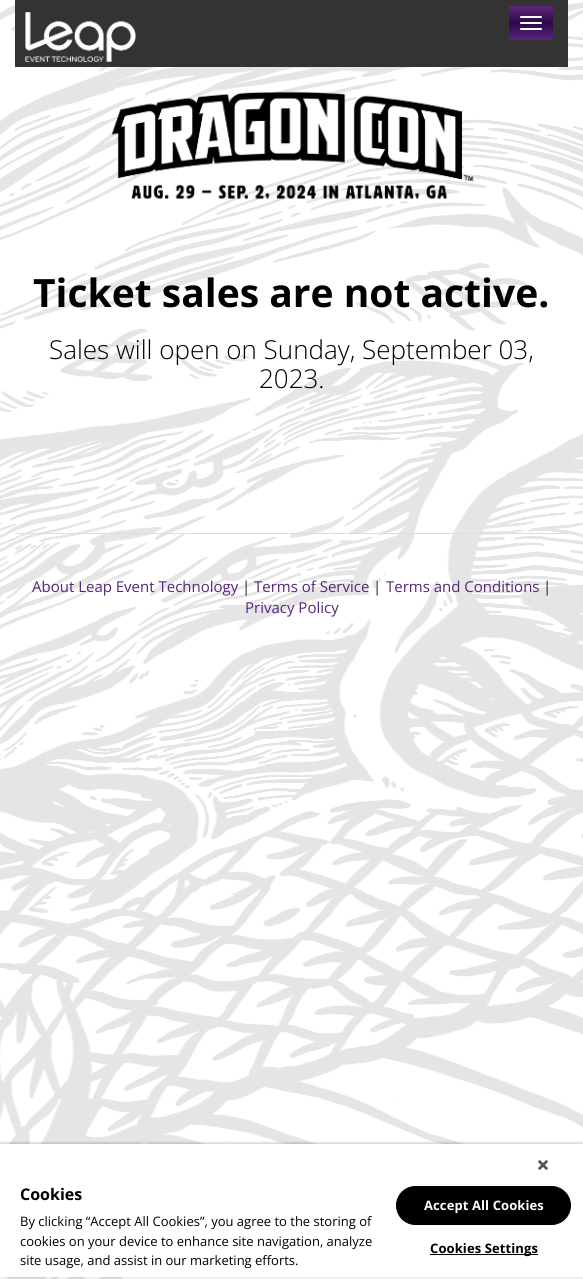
#include <cairo.h>
#include <math.h>
#include <stddef.h>

typedef struct { const char *family; double size; int italic, bold; unsigned color; } style_t;
static cairo_t *ctx;

static void ink(unsigned color) {
    cairo_set_source_rgb(ctx, (color >> 16) / 255.0, (color >> 8 & 255) / 255.0, (color & 255) / 255.0);
}

static void write(double x, double y, const char *s, const style_t *st) {
    cairo_select_font_face(ctx, st->family, st->italic ? CAIRO_FONT_SLANT_ITALIC : CAIRO_FONT_SLANT_NORMAL,
        st->bold ? CAIRO_FONT_WEIGHT_BOLD : CAIRO_FONT_WEIGHT_NORMAL);
    cairo_set_font_size(ctx, st->size);
    ink(st->color);
    cairo_move_to(ctx, x, y);
    cairo_show_text(ctx, s);
}

static void write_spaced(double x, double y, const char *s, double letter, double word) {
    cairo_move_to(ctx, x, y);
    while (*s) {
        char ch[5] = {0};
        int n = 0;
        do ch[n++] = *s++; while ((*s & 0xC0) == 0x80);
        cairo_show_text(ctx, ch);
        cairo_rel_move_to(ctx, letter + word * (*ch == ' '), 0);
    }
}

static void block(double x, double y, double w, double h, unsigned color) {
    ink(color);
    cairo_rectangle(ctx, x, y, w, h);
    cairo_fill(ctx);
}

static void round_path(double x, double y, double w, double h, double r) {
    cairo_new_sub_path(ctx);
    cairo_arc(ctx, x + w - r, y + h - r, r, 0, M_PI / 2);
    cairo_arc(ctx, x + r, y + h - r, r, M_PI / 2, M_PI);
    cairo_arc(ctx, x + r, y + r, r, M_PI, 1.5 * M_PI);
    cairo_arc(ctx, x + w - r, y + r, r, 1.5 * M_PI, 2 * M_PI);
    cairo_close_path(ctx);
}

static void blur_box(double x, double y, double w, double h, double r, double blur, double alpha) {
    cairo_push_group_with_content(ctx, CAIRO_CONTENT_ALPHA);
    cairo_set_operator(ctx, CAIRO_OPERATOR_SOURCE);
    for (int i = 15; i >= -15 && fmin(w, h) + blur * i / 3 > 0; i -= 2) {
        double e = blur * i / 6;
        cairo_set_source_rgba(ctx, 0, 0, 0, alpha * erfc((i - 1) / 8.5) / 2);
        round_path(x - e, y - e, w + 2 * e, h + 2 * e, fmax(0, fmin(r + e + blur * .6, fmin(w, h) / 2 + e)));
        cairo_fill(ctx);
    }
    cairo_pattern_t *soft = cairo_pop_group(ctx);
    cairo_mask(ctx, soft);
    cairo_pattern_destroy(soft);
}

static void paste(const char *path, double x, double y, double w, double h) {
    cairo_surface_t *image = cairo_image_surface_create_from_png(path);
    cairo_save(ctx);
    cairo_set_source_surface(ctx, image, x, y);
    cairo_rectangle(ctx, x, y, w, h);
    cairo_fill(ctx);
    cairo_restore(ctx);
    cairo_surface_destroy(image);
}

static const style_t s1 = {"Open Sans", 39, 0, 1, 0x000000};
static const style_t s2 = {"Open Sans Light", 26, 0, 0, 0x000000};
static const style_t s3 = {"Open Sans", 15, 0, 0, 0x592579};
static const style_t s4 = {"Open Sans", 15, 0, 0, 0x222222};
static const style_t s5 = {"Open Sans", 16, 0, 1, 0x000000};
static const style_t s6 = {"Open Sans", 13, 0, 0, 0x000000};

int main(void) {
    cairo_surface_t *surface = cairo_image_surface_create(CAIRO_FORMAT_RGB24, 583, 1279);
    ctx = cairo_create(surface);
    cairo_font_options_t *options = cairo_font_options_create();
    cairo_font_options_set_hint_metrics(options, CAIRO_HINT_METRICS_OFF);
    cairo_font_options_set_hint_style(options, CAIRO_HINT_STYLE_NONE);
    cairo_set_font_options(ctx, options);
    cairo_set_miter_limit(ctx, 4);
    cairo_pattern_t *gradient;
    ink(0xffffff);
    cairo_paint(ctx);
    paste("pic1.png", 0, 2, 583, 1277);
    block(15, 0, 553, 67, 0x333333);
    paste("pic2.png", 25, 12, 111, 50);
    gradient = cairo_pattern_create_linear(531, -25, 531, 7);
    cairo_pattern_add_color_stop_rgba(gradient, 0, 0.349, 0.145, 0.475, 1);
    cairo_pattern_add_color_stop_rgba(gradient, 0.5, 0.184, 0.024, 0.286, 1);
    cairo_pattern_add_color_stop_rgba(gradient, 1, 0.349, 0.145, 0.475, 1);
    cairo_set_source(ctx, gradient);
    cairo_pattern_destroy(gradient);
    cairo_rectangle(ctx, 509, 6, 44, 1);
    cairo_fill(ctx);
    gradient = cairo_pattern_create_linear(531, 7, 531, 39);
    cairo_pattern_add_color_stop_rgba(gradient, 0, 0.349, 0.145, 0.475, 1);
    cairo_pattern_add_color_stop_rgba(gradient, 0.5, 0.184, 0.024, 0.286, 1);
    cairo_pattern_add_color_stop_rgba(gradient, 1, 0.349, 0.145, 0.475, 1);
    cairo_set_source(ctx, gradient);
    cairo_pattern_destroy(gradient);
    cairo_rectangle(ctx, 509, 7, 44, 32);
    cairo_fill(ctx);
    gradient = cairo_pattern_create_linear(531, 39, 531, 71);
    cairo_pattern_add_color_stop_rgba(gradient, 0, 0.349, 0.145, 0.475, 1);
    cairo_pattern_add_color_stop_rgba(gradient, 0.5, 0.184, 0.024, 0.286, 1);
    cairo_pattern_add_color_stop_rgba(gradient, 1, 0.349, 0.145, 0.475, 1);
    cairo_set_source(ctx, gradient);
    cairo_pattern_destroy(gradient);
    cairo_rectangle(ctx, 509, 39, 44, 1);
    cairo_fill(ctx);
    ink(0xffffff);
    round_path(520, 16, 22, 2, 1);
    cairo_fill(ctx);
    round_path(520, 22, 22, 2, 1);
    cairo_fill(ctx);
    round_path(520, 28, 22, 2, 1);
    cairo_fill(ctx);
    paste("pic3.png", 111, 91, 363, 109);
    write(33, 307, "Ticket sales are not active.", &s1);
    write(49, 359, "Sales will open on Sunday, September 03,", &s2);
    write(259, 388, "2023.", &s2);
    block(15, 533, 553, 1, 0xdddddd);
    write(32, 592, "About Leap Event Technology", &s3);
    write(242, 592, "|", &s4);
    write(254, 592, "Terms of Service", &s3);
    write(373, 592, "|", &s4);
    write(386, 592, "Terms and Conditions", &s3);
    write(543, 592, "|", &s4);
    write(245, 613, "Privacy Policy", &s3);
    cairo_save(ctx);
    cairo_rectangle(ctx, 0, 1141, 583, 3);
    cairo_clip(ctx);
    ink(0x000000);
    blur_box(0, 1144, 583, 135, 0, 2, 0.35);
    cairo_restore(ctx);
    cairo_save(ctx);
    cairo_rectangle(ctx, 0, 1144, 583, 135);
    cairo_clip(ctx);
    ink(0x000000);
    blur_box(0, 1144, 583, 133, 0, 2, 0.2);
    cairo_restore(ctx);
    block(0, 1144, 583, 133, 0xffffff);
    paste("pic4.png", 538, 1160, 10, 10);
    write(20, 1200, "Cookies", &s5);
    write(20, 1226, "By clicking “Accept All Cookies”, you agree to the storing of", &s6);
    write(20, 1246, "cookies on your device to enhance site navigation, analyze", &s6);
    write(20, 1265, "site usage, and assist in our marketing efforts.", &s6);
    round_path(396.5, 1186.5, 174, 38, 19);
    cairo_fill_preserve(ctx);
    cairo_set_line_width(ctx, 1);
    cairo_stroke(ctx);
    cairo_select_font_face(ctx, "Open Sans", CAIRO_FONT_SLANT_NORMAL, CAIRO_FONT_WEIGHT_BOLD);
    ink(0xffffff);
    write_spaced(424, 1210, "Accept All Cookies", 0.1, 0);
    block(430, 1254, 108, 1, 0x000000);
    write_spaced(430, 1253, "Cookies Settings", 0.1, 0);
    cairo_surface_write_to_png(surface, "screenshot.png");
    cairo_font_options_destroy(options);
    cairo_destroy(ctx);
    cairo_surface_destroy(surface);
    return 0;
}
